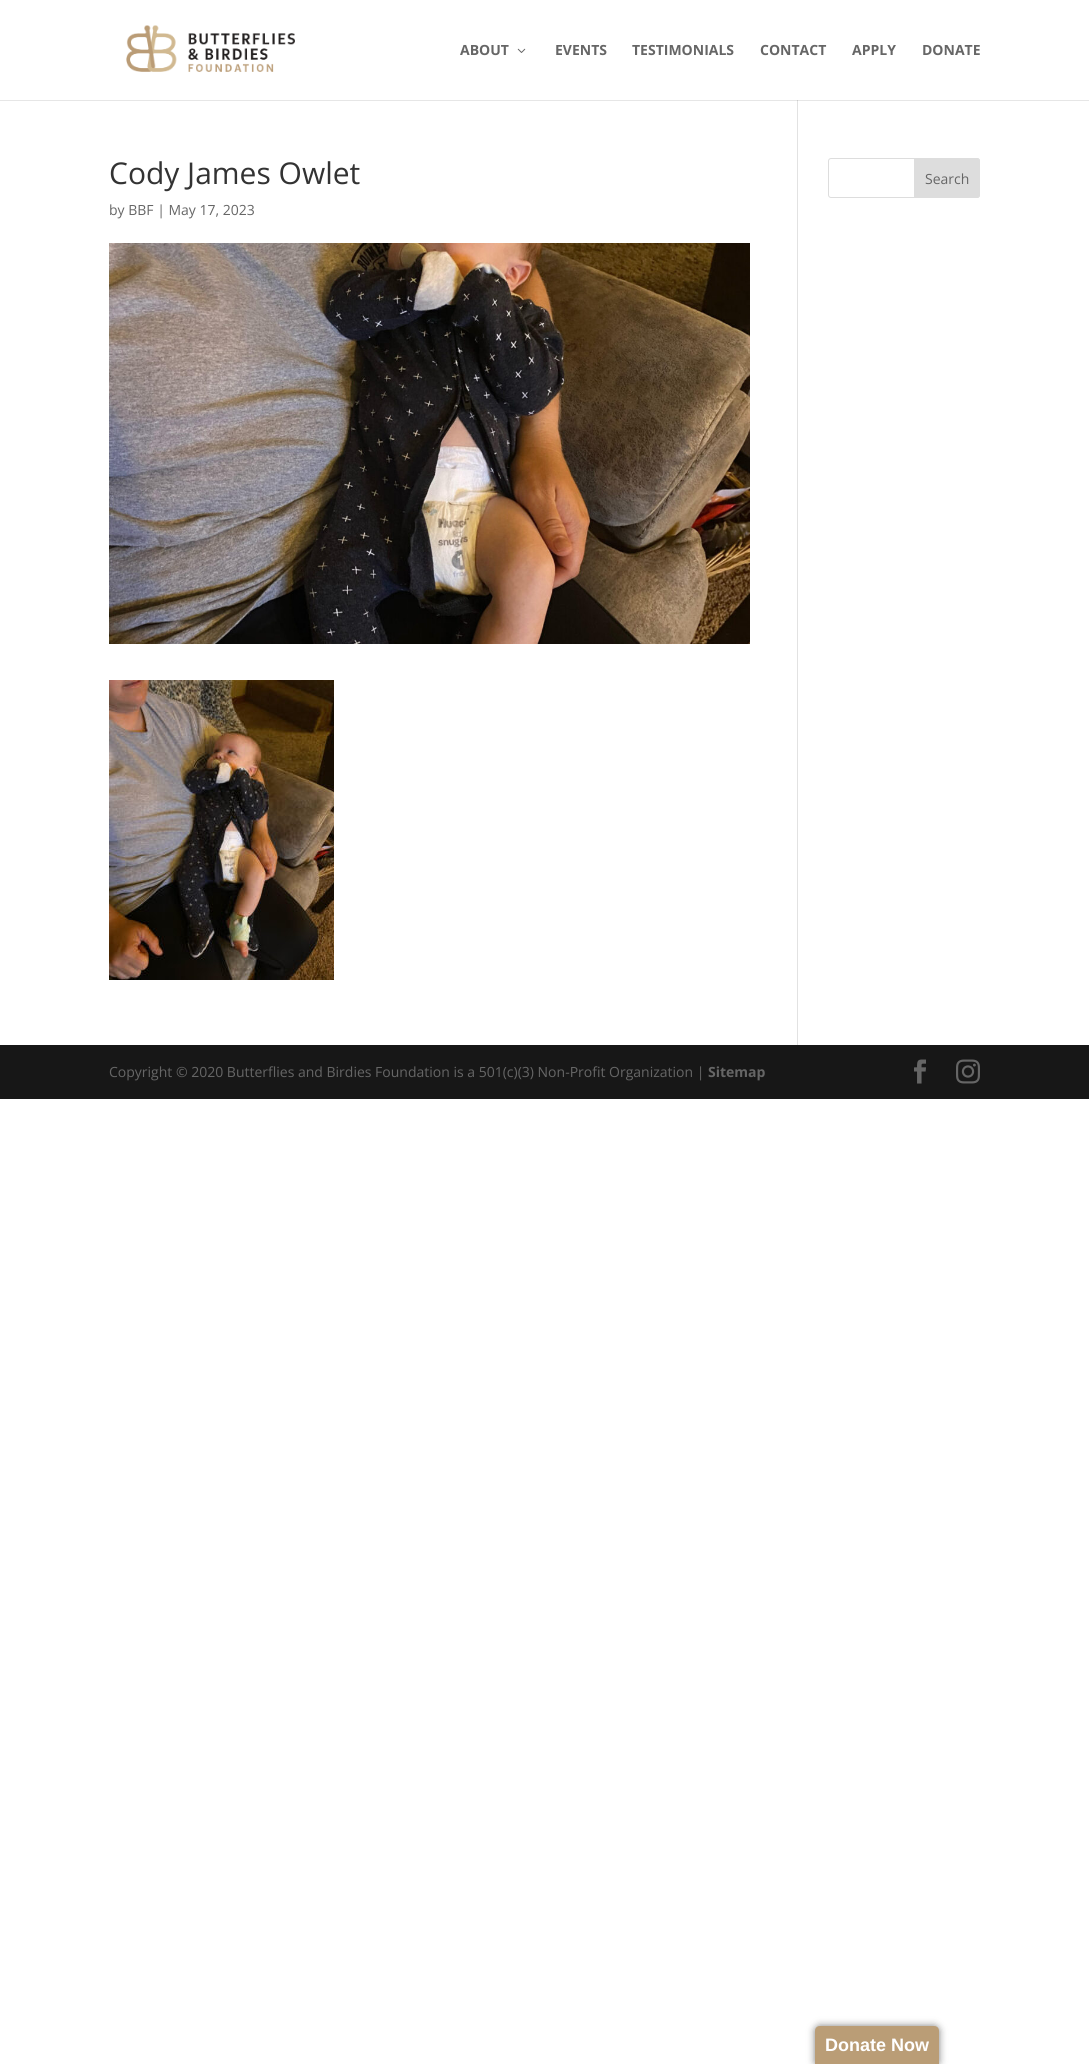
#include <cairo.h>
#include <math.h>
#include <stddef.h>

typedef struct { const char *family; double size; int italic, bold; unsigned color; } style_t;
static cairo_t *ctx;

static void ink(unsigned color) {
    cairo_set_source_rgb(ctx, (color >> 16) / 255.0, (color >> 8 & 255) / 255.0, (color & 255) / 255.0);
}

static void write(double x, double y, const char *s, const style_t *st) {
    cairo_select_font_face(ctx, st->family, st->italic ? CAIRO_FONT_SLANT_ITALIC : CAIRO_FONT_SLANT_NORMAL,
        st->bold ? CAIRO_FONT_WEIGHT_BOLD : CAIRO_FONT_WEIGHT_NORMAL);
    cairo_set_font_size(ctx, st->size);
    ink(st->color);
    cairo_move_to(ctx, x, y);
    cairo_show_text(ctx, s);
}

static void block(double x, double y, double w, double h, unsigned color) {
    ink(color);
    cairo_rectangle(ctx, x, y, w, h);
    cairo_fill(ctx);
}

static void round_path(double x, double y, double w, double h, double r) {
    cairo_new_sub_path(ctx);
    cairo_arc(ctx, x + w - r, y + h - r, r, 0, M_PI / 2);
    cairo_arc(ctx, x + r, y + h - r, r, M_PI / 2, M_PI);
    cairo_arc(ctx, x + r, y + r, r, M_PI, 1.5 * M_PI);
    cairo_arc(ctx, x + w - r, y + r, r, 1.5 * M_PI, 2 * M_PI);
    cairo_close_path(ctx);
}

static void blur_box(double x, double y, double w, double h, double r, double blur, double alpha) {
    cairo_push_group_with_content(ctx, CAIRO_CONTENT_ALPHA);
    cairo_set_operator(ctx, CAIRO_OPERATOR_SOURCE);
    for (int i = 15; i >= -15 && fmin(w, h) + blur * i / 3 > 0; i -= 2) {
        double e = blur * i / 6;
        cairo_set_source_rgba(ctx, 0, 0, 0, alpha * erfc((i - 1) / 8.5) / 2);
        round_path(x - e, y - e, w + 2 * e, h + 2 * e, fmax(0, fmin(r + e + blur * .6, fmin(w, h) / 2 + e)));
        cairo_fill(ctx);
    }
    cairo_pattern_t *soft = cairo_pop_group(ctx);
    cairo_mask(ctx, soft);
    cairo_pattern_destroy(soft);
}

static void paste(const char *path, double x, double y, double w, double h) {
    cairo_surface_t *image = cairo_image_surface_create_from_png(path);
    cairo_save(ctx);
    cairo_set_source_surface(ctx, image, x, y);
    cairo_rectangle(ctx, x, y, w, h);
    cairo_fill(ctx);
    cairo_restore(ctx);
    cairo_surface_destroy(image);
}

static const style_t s1 = {"Open Sans", 14, 0, 1, 0x666666};
static const style_t s2 = {"Open Sans", 30, 0, 0, 0x333333};
static const style_t s3 = {"Open Sans", 14, 0, 0, 0x666666};
static const style_t s4 = {"Liberation Sans", 18, 0, 1, 0xffffff};

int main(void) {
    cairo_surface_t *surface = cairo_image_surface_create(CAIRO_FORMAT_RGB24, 1089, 2064);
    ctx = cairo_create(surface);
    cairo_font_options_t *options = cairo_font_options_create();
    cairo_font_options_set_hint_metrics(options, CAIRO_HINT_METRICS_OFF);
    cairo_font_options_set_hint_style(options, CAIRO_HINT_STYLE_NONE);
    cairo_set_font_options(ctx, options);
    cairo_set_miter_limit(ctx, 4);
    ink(0xffffff);
    cairo_paint(ctx);
    block(0, 100, 1089, 1, 0xe6e6e6);
    paste("pic1.png", 126, 25, 169, 47);
    write(460, 55, "ABOUT", &s1);
    paste("pic2.png", 517, 48, 9, 5);
    write(555, 55, "EVENTS", &s1);
    write(632, 55, "TESTIMONIALS", &s1);
    write(760, 55, "CONTACT", &s1);
    write(852, 55, "APPLY", &s1);
    write(922, 55, "DONATE", &s1);
    block(797, 100, 1, 945, 0xe2e2e2);
    block(797, 100, 1, 1, 0xcbcbcb);
    write(109, 184, "Cody James Owlet", &s2);
    write(109, 215, "by BBF | May 17, 2023", &s3);
    paste("pic3.png", 109, 243, 641, 401);
    paste("pic4.png", 109, 680, 225, 300);
    round_path(828.5, 158.5, 151, 39, 2.5);
    ink(0xdddddd);
    cairo_set_line_width(ctx, 1);
    cairo_stroke(ctx);
    cairo_new_path(ctx);
    cairo_move_to(ctx, 914.5, 158.5);
    cairo_line_to(ctx, 977, 158.5);
    cairo_curve_to(ctx, 978.5, 158.5, 979.5, 159.5, 979.5, 161);
    cairo_line_to(ctx, 979.5, 195);
    cairo_curve_to(ctx, 979.5, 196.5, 978.5, 197.5, 977, 197.5);
    cairo_line_to(ctx, 914.5, 197.5);
    cairo_close_path(ctx);
    cairo_fill_preserve(ctx);
    cairo_stroke(ctx);
    write(925, 184, "Search", &s3);
    block(0, 1045, 1089, 54, 0x171717);
    write(109, 1077, "Copyright © 2020 Butterflies and Birdies Foundation is a 501(c)(3) Non-Profit Organization |", &s3);
    write(708, 1077, "Sitemap", &s1);
    paste("pic5.png", 914, 1059, 12, 25);
    paste("pic6.png", 956, 1059, 24, 25);
    ink(0x000000);
    blur_box(815, 2026, 124, 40, 5, 4, 0.5);
    ink(0xba9d76);
    cairo_new_path(ctx);
    cairo_move_to(ctx, 820, 2026);
    cairo_line_to(ctx, 934, 2026);
    cairo_curve_to(ctx, 937, 2026, 939, 2028, 939, 2031);
    cairo_line_to(ctx, 939, 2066);
    cairo_line_to(ctx, 815, 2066);
    cairo_line_to(ctx, 815, 2031);
    cairo_curve_to(ctx, 815, 2028, 817, 2026, 820, 2026);
    cairo_close_path(ctx);
    cairo_fill(ctx);
    write(825, 2051, "Donate Now", &s4);
    cairo_surface_write_to_png(surface, "screenshot.png");
    cairo_font_options_destroy(options);
    cairo_destroy(ctx);
    cairo_surface_destroy(surface);
    return 0;
}
